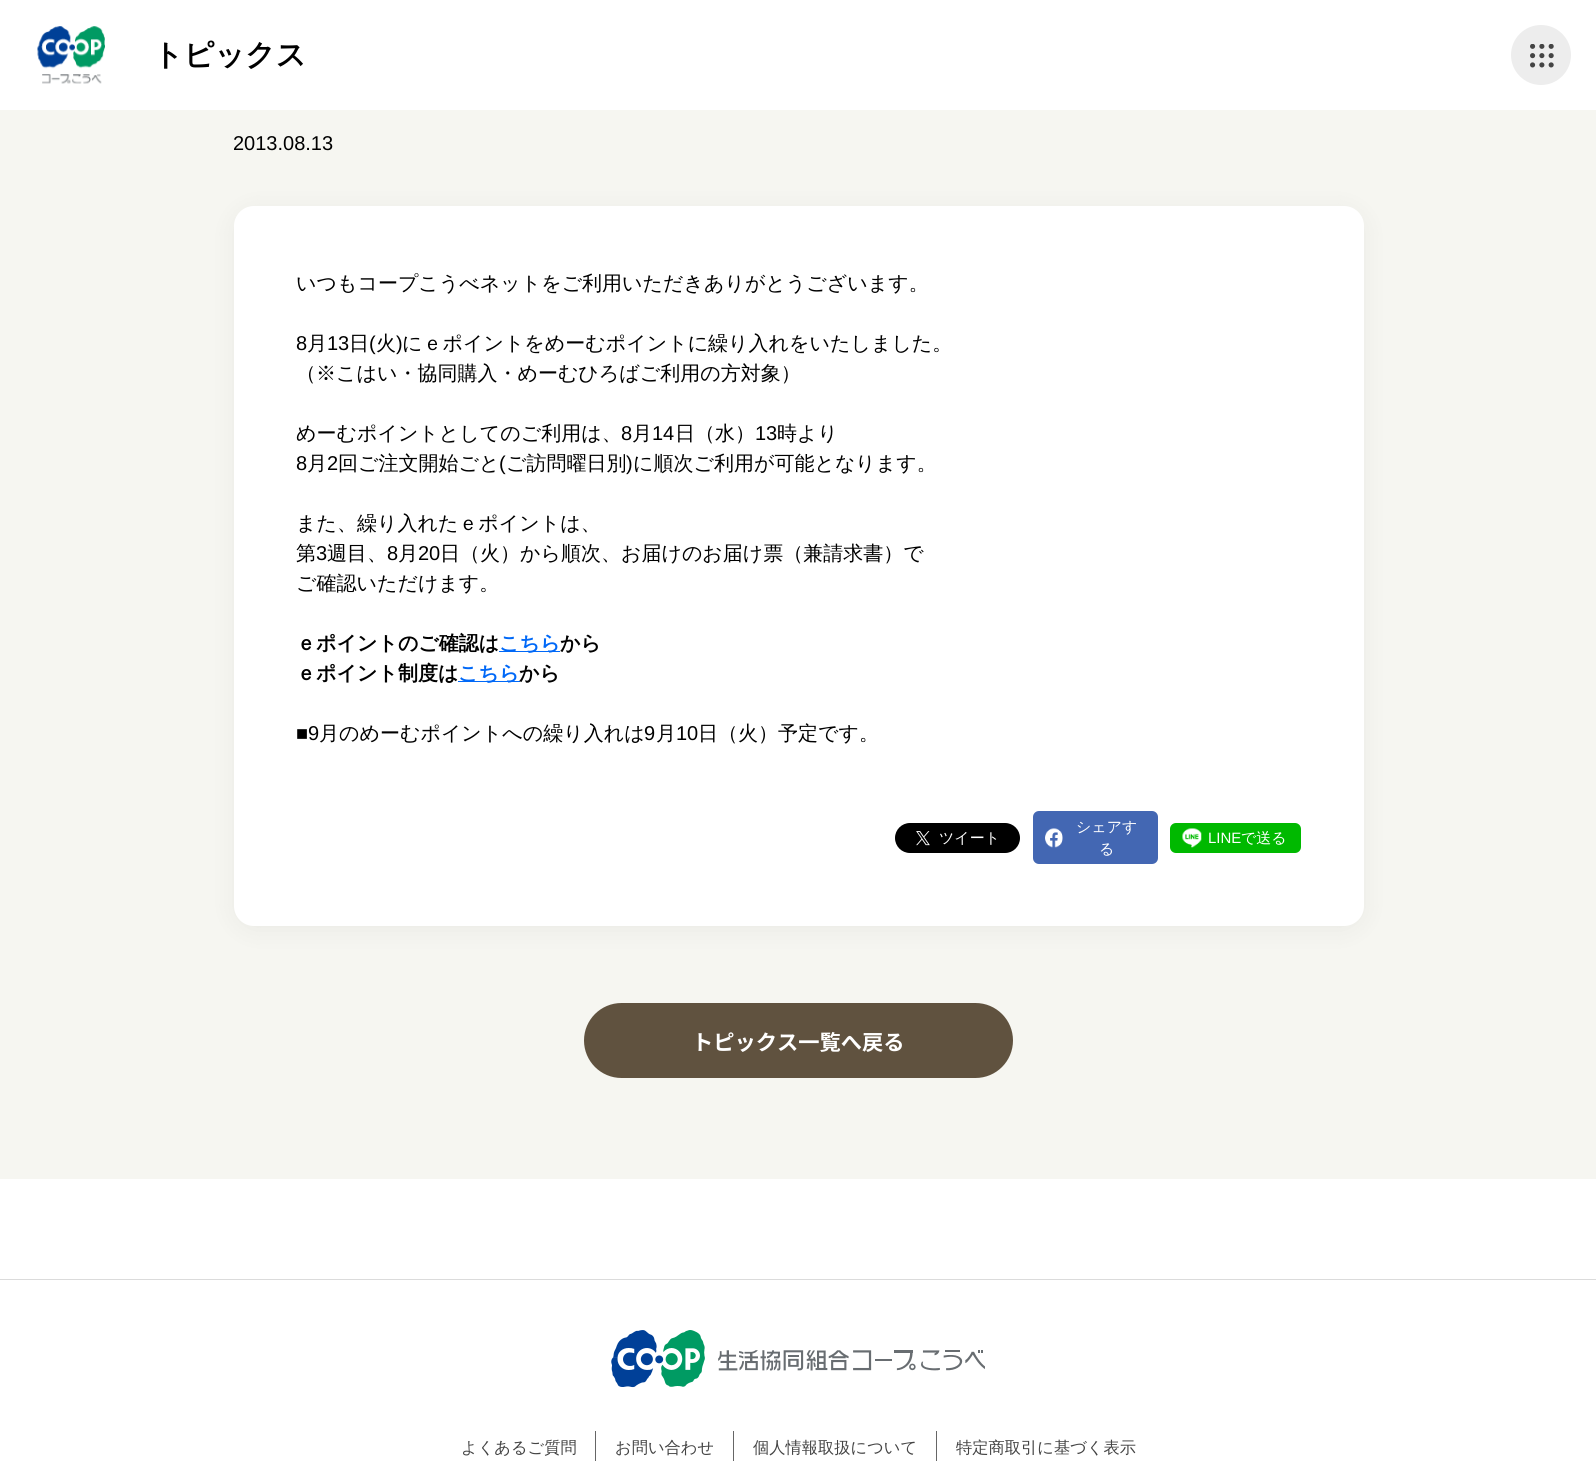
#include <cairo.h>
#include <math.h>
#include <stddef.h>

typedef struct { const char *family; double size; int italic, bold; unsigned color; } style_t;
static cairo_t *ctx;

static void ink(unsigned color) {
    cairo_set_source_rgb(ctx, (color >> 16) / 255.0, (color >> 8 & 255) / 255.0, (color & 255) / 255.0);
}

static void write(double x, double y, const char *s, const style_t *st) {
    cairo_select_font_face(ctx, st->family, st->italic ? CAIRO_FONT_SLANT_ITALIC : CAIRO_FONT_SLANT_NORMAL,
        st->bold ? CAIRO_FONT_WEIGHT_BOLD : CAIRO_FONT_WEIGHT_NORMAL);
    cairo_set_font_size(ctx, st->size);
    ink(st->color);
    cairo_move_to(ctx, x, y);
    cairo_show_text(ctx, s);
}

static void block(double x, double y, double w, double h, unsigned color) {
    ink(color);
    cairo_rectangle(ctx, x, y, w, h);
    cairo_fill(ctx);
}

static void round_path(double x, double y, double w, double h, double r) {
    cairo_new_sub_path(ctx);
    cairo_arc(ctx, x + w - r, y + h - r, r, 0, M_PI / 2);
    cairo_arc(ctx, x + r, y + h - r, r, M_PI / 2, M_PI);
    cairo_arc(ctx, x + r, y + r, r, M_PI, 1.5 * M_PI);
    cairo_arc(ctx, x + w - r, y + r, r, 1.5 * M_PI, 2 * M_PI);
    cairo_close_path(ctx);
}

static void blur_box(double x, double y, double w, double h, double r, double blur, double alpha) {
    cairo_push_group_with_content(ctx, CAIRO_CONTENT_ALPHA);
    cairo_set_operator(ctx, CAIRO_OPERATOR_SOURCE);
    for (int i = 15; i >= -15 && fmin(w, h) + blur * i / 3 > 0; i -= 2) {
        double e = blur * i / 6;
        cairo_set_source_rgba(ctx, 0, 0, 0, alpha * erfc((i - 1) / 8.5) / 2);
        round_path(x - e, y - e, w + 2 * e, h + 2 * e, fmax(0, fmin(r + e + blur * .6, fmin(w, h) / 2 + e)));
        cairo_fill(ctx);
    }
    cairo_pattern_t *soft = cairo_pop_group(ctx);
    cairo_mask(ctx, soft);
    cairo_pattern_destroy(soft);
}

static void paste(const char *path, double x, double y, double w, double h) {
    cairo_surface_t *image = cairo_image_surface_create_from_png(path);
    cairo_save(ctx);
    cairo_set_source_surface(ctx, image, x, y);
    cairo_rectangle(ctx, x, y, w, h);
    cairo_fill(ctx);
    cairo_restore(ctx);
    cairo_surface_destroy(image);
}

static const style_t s1 = {"WenQuanYi Zen Hei", 30, 0, 1, 0x000000};
static const style_t s2 = {"Liberation Sans", 20, 0, 0, 0x000000};
static const style_t s3 = {"WenQuanYi Zen Hei Medium", 20, 0, 0, 0x000000};
static const style_t s4 = {"WenQuanYi Zen Hei", 20, 0, 1, 0x000000};
static const style_t s5 = {"WenQuanYi Zen Hei", 20, 0, 1, 0x0068f7};
static const style_t s6 = {"WenQuanYi Zen Hei Medium", 15, 0, 0, 0xffffff};
static const style_t s7 = {"Liberation Sans", 15, 0, 0, 0xffffff};
static const style_t s8 = {"Noto Sans JP", 21.25, 0, 1, 0xffffff};
static const style_t s9 = {"WenQuanYi Zen Hei Medium", 16.25, 0, 0, 0x444444};

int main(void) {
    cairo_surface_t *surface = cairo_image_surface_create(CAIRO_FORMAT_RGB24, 1596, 1461);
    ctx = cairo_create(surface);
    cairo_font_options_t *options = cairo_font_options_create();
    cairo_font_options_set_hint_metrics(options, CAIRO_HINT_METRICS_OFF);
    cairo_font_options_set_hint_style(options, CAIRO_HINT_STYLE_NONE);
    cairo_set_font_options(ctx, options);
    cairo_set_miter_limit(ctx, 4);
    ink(0xffffff);
    cairo_paint(ctx);
    paste("pic1.png", 37, 26, 68, 58);
    write(153, 65, "トピックス", &s1);
    ink(0xededed);
    cairo_new_path(ctx);
    cairo_arc(ctx, 1541, 55, 30, 0, 2 * M_PI);
    cairo_fill(ctx);
    paste("pic2.png", 1530, 44, 24, 24);
    block(0, 110, 1596, 1069, 0xf6f6f1);
    write(233, 150, "2013.08.13", &s2);
    ink(0x000000);
    blur_box(234, 210, 1130, 720, 20, 12.5, 0.05);
    ink(0xffffff);
    round_path(234, 206, 1130, 720, 20);
    cairo_fill(ctx);
    write(296, 290, "いつもコープこうべネットをご利用いただきありがとうございます。", &s3);
    write(296, 350, "8", &s2);
    write(307, 350, "月", &s3);
    write(327, 350, "13", &s2);
    write(349, 350, "日", &s3);
    write(369, 350, "(", &s2);
    write(376, 350, "火", &s3);
    write(396, 350, ")", &s2);
    write(402, 350, "にｅポイントをめーむポイントに繰り入れをいたしました。", &s3);
    write(296, 380, "（※こはい・協同購入・めーむひろばご利用の方対象）", &s3);
    write(296, 440, "めーむポイントとしてのご利用は、", &s3);
    write(621, 440, "8", &s2);
    write(632, 440, "月", &s3);
    write(652, 440, "14", &s2);
    write(675, 440, "日（水）", &s3);
    write(755, 440, "13", &s2);
    write(777, 440, "時より", &s3);
    write(296, 470, "8", &s2);
    write(307, 470, "月", &s3);
    write(327, 470, "2", &s2);
    write(338, 470, "回ご注文開始ごと", &s3);
    write(499, 470, "(", &s2);
    write(506, 470, "ご訪問曜日別", &s3);
    write(626, 470, ")", &s2);
    write(633, 470, "に順次ご利用が可能となります。", &s3);
    write(296, 530, "また、繰り入れたｅポイントは、", &s3);
    write(296, 560, "第", &s3);
    write(316, 560, "3", &s2);
    write(327, 560, "週目、", &s3);
    write(387, 560, "8", &s2);
    write(398, 560, "月", &s3);
    write(418, 560, "20", &s2);
    write(440, 560, "日（火）から順次、お届けのお届け票（兼請求書）で", &s3);
    write(296, 590, "ご確認いただけます。", &s3);
    write(296, 650, "ｅポイントのご確認は", &s4);
    block(499, 651, 61, 1, 0x0068f7);
    write(499, 650, "こちら", &s5);
    write(560, 650, "から", &s4);
    write(296, 680, "ｅポイント制度は", &s4);
    block(458, 681, 62, 1, 0x0068f7);
    write(458, 680, "こちら", &s5);
    write(519, 680, "から", &s4);
    write(296, 740, "■9", &s2);
    write(319, 740, "月のめーむポイントへの繰り入れは", &s3);
    write(644, 740, "9", &s2);
    write(656, 740, "月", &s3);
    write(676, 740, "10", &s2);
    write(698, 740, "日（火）予定です。", &s3);
    round_path(895, 823, 125, 30, 15);
    cairo_fill(ctx);
    paste("pic3.png", 916, 831, 14, 15);
    write(939, 843, "ツイート", &s6);
    ink(0x4367b3);
    round_path(1033, 811, 125, 53, 6);
    cairo_fill(ctx);
    paste("pic4.png", 1045, 828, 18, 20);
    write(1076, 832, "シェアす", &s6);
    write(1099, 854, "る", &s6);
    ink(0x00b900);
    round_path(1170, 823, 131, 30, 6);
    cairo_fill(ctx);
    paste("pic5.png", 1182, 828, 20, 20);
    write(1208, 843, "LINE", &s7);
    write(1241, 843, "で送る", &s6);
    ink(0x60523f);
    round_path(585.5, 1004.5, 426, 72, 36);
    cairo_fill_preserve(ctx);
    cairo_set_line_width(ctx, 3);
    cairo_stroke(ctx);
    write(692, 1050, "トピックス一覧へ戻る", &s8);
    block(0, 1279, 1596, 1, 0xdbdbdb);
    paste("pic6.png", 611, 1330, 374, 58);
    block(595, 1431, 1, 30, 0x666666);
    write(461, 1453, "よくあるご質問", &s9);
    block(733, 1431, 1, 30, 0x666666);
    write(615, 1453, "お問い合わせ", &s9);
    block(936, 1431, 1, 30, 0x666666);
    write(753, 1453, "個人情報取扱について", &s9);
    write(956, 1453, "特定商取引に基づく表示", &s9);
    cairo_surface_write_to_png(surface, "screenshot.png");
    cairo_font_options_destroy(options);
    cairo_destroy(ctx);
    cairo_surface_destroy(surface);
    return 0;
}
